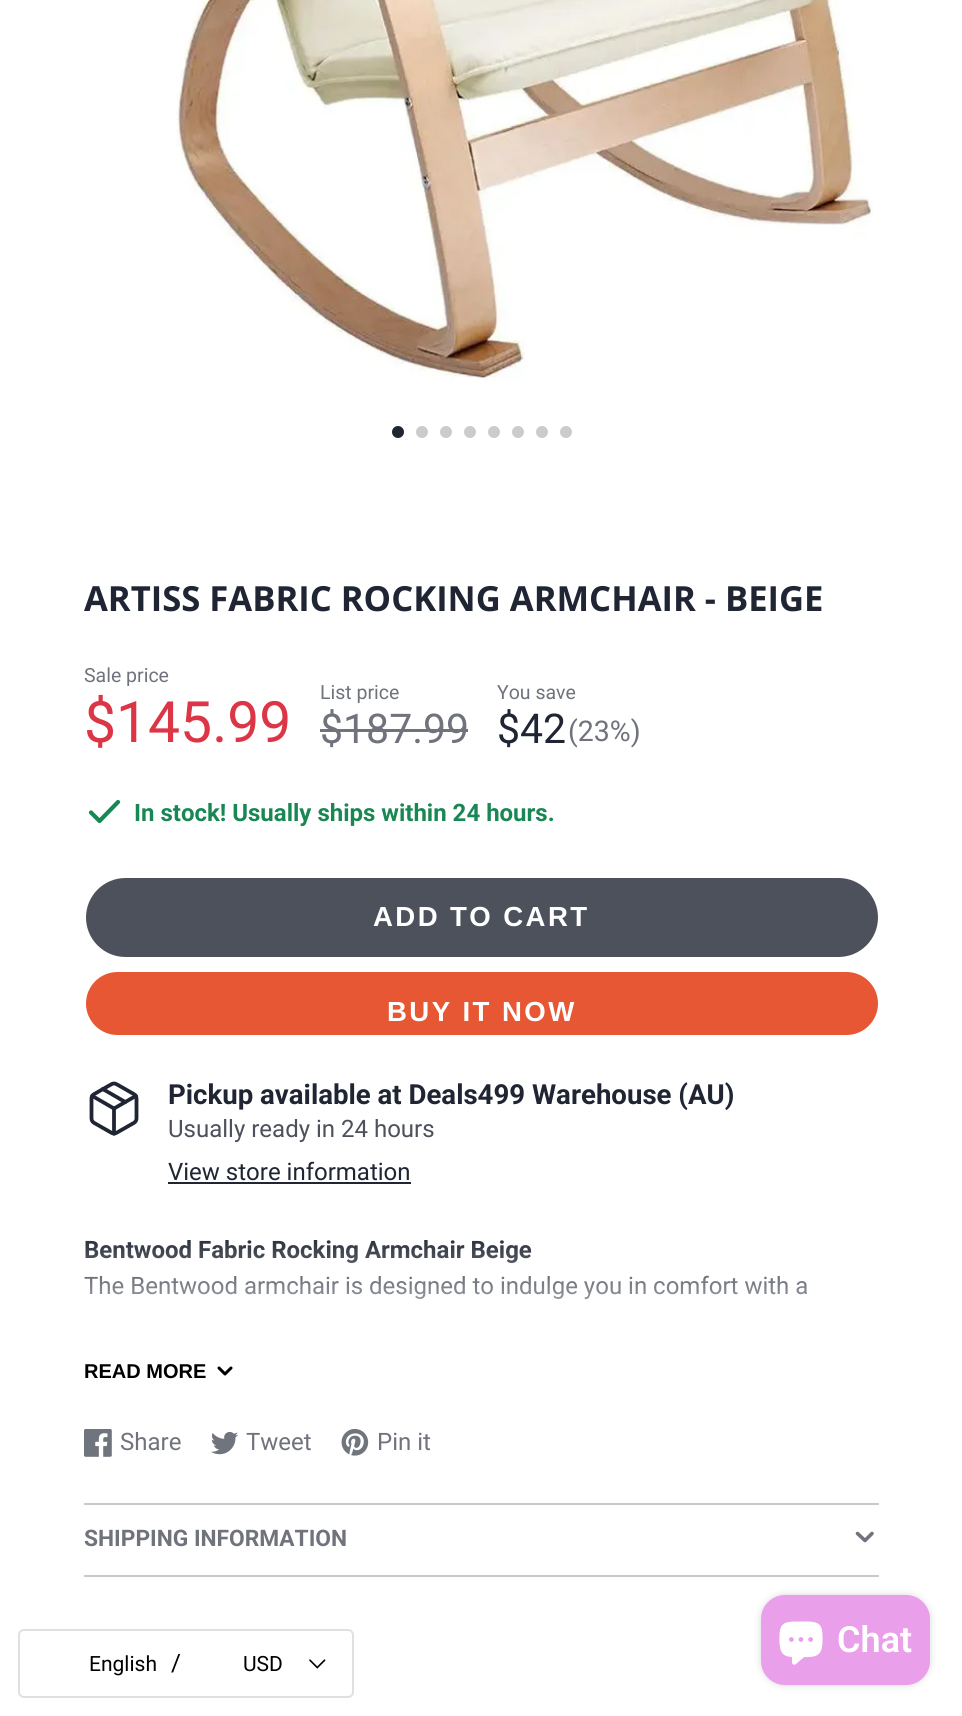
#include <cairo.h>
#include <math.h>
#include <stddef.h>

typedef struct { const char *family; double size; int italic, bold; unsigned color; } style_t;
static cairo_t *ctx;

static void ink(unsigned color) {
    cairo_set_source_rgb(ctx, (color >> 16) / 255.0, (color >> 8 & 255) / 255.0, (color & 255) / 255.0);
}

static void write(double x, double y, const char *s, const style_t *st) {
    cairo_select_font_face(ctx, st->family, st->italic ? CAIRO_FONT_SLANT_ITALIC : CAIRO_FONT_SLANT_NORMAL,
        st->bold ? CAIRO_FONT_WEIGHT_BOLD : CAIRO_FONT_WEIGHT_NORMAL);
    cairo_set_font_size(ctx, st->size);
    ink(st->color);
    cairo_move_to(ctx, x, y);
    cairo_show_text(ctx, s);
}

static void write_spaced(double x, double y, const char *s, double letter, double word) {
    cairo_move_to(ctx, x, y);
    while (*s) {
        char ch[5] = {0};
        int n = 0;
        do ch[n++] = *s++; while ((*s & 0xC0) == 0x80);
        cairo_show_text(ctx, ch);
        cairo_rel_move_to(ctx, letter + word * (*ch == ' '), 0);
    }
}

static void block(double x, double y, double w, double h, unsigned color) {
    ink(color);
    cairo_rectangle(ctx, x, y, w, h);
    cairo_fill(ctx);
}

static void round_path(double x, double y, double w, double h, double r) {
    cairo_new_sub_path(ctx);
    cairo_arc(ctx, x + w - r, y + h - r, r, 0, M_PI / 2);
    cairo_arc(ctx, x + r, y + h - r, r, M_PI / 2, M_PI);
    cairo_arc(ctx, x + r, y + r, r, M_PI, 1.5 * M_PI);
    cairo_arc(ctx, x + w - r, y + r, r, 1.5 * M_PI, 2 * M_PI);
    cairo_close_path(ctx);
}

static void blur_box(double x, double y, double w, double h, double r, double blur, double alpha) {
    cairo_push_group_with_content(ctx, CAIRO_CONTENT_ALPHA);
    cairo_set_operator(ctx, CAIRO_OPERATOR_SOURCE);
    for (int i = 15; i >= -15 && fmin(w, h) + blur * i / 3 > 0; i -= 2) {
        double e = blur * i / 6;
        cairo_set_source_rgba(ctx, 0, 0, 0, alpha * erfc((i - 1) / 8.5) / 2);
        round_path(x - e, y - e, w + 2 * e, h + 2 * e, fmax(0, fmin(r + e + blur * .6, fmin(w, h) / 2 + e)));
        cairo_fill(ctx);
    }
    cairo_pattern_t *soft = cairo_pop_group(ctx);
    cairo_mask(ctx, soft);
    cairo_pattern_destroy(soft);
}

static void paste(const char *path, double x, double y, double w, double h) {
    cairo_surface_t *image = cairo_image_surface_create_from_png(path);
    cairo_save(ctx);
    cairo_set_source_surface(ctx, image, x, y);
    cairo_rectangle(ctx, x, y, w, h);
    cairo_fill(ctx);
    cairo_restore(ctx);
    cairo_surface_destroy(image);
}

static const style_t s1 = {"Open Sans", 34.6, 0, 1, 0x1f2532};
static const style_t s2 = {"Roboto", 19.5, 0, 0, 0x70737c};
static const style_t s3 = {"Roboto", 57, 0, 0, 0xdc3545};
static const style_t s4 = {"Roboto", 41, 0, 0, 0x70737c};
static const style_t s5 = {"Roboto", 41, 0, 0, 0x1f2532};
static const style_t s6 = {"Roboto", 28.5, 0, 0, 0x70737c};
static const style_t s7 = {"Roboto", 24, 0, 1, 0x198754};
static const style_t s8 = {"Roboto", 27.6, 0, 1, 0x1f2532};
static const style_t s9 = {"Roboto", 24, 0, 0, 0x4c515b};
static const style_t s10 = {"Roboto", 24, 0, 0, 0x1f2532};
static const style_t s11 = {"Roboto", 24, 0, 1, 0x1f2532};
static const style_t s12 = {"Liberation Sans", 20, 0, 1, 0x000000};
static const style_t s13 = {"Roboto", 24, 0, 0, 0x70737c};
static const style_t s14 = {"Roboto", 22.75, 0, 1, 0x70737c};
static const style_t s15 = {"Roboto SemiBold", 36, 0, 0, 0xffffff};
static const style_t s16 = {"Roboto", 21, 0, 0, 0x000000};
static const style_t s17 = {"Roboto", 24, 0, 0, 0x000000};

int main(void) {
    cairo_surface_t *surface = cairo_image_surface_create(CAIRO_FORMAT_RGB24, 962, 1716);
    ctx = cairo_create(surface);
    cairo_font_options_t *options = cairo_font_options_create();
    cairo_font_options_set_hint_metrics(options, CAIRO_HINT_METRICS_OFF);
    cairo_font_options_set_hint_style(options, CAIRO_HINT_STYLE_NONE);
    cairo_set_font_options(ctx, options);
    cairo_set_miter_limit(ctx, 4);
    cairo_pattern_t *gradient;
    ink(0xffffff);
    cairo_paint(ctx);
    paste("pic1.png", 176, 0, 697, 381);
    ink(0x1f2532);
    cairo_arc(ctx, 398, 432, 6, 0, 2 * M_PI);
    cairo_fill(ctx);
    ink(0xcccccc);
    cairo_arc(ctx, 422, 432, 6, 0, 2 * M_PI);
    cairo_fill(ctx);
    cairo_arc(ctx, 446, 432, 6, 0, 2 * M_PI);
    cairo_fill(ctx);
    cairo_arc(ctx, 470, 432, 6, 0, 2 * M_PI);
    cairo_fill(ctx);
    cairo_arc(ctx, 494, 432, 6, 0, 2 * M_PI);
    cairo_fill(ctx);
    cairo_arc(ctx, 518, 432, 6, 0, 2 * M_PI);
    cairo_fill(ctx);
    cairo_arc(ctx, 542, 432, 6, 0, 2 * M_PI);
    cairo_fill(ctx);
    cairo_arc(ctx, 566, 432, 6, 0, 2 * M_PI);
    cairo_fill(ctx);
    write(84, 611, "ARTISS FABRIC ROCKING ARMCHAIR - BEIGE", &s1);
    write(84, 682, "Sale price", &s2);
    write(84, 742, "$145.99", &s3);
    write(320, 699, "List price", &s2);
    write(320, 743, "$187.99", &s4);
    block(320, 729, 148, 3, 0x70737c);
    write(497, 699, "You save", &s2);
    write(497, 743, "$42", &s5);
    write(568, 741, "(23%)", &s6);
    cairo_new_path(ctx);
    cairo_move_to(ctx, 118, 802);
    cairo_line_to(ctx, 99.5, 821);
    cairo_line_to(ctx, 91, 812.5);
    ink(0x198754);
    cairo_set_line_width(ctx, 4.2);
    cairo_set_line_cap(ctx, CAIRO_LINE_CAP_ROUND);
    cairo_set_line_join(ctx, CAIRO_LINE_JOIN_ROUND);
    cairo_stroke(ctx);
    write(134, 821, "In stock! Usually ships within 24 hours.", &s7);
    ink(0x4c515b);
    round_path(86, 878, 792, 79, 39.5);
    cairo_fill(ctx);
    cairo_select_font_face(ctx, "Liberation Sans", CAIRO_FONT_SLANT_NORMAL, CAIRO_FONT_WEIGHT_BOLD);
    cairo_set_font_size(ctx, 27.6);
    ink(0xffffff);
    write_spaced(373, 926, "ADD TO CART", 2.4, 0);
    ink(0xe85733);
    round_path(86, 972, 792, 63, 31.5);
    cairo_fill(ctx);
    ink(0xffffff);
    write_spaced(387, 1021, "BUY IT NOW", 2.4, 0);
    paste("pic2.png", 89, 1081, 50, 55);
    write(168, 1104, "Pickup available at Deals499 Warehouse (AU)", &s8);
    write(168, 1137, "Usually ready in 24 hours", &s9);
    write(168, 1180, "View store information", &s10);
    block(168, 1182, 243, 2, 0x1f2532);
    write(84, 1258, "Bentwood Fabric Rocking Armchair Beige", &s11);
    write(84, 1294, "The Bentwood armchair is designed to indulge you in comfort with a", &s10);
    gradient = cairo_pattern_create_linear(482, 1383, 482, 1233);
    cairo_pattern_add_color_stop_rgba(gradient, 0.15, 1, 1, 1, 1);
    cairo_pattern_add_color_stop_rgba(gradient, 1, 1, 1, 1, 0);
    cairo_set_source(ctx, gradient);
    cairo_pattern_destroy(gradient);
    cairo_rectangle(ctx, 84, 1240, 723, 60);
    cairo_fill(ctx);
    write(84, 1378, "READ MORE", &s12);
    cairo_new_path(ctx);
    cairo_move_to(ctx, 219, 1368);
    cairo_line_to(ctx, 225, 1374);
    cairo_line_to(ctx, 231, 1368);
    cairo_set_line_width(ctx, 3);
    cairo_stroke(ctx);
    paste("pic3.png", 84, 1429, 28, 28);
    write(120, 1450, "Share", &s13);
    paste("pic4.png", 211, 1431, 27, 24);
    write(246, 1450, "Tweet", &s13);
    paste("pic5.png", 341, 1428, 28, 28);
    write(377, 1450, "Pin it", &s13);
    block(84, 1503, 795, 2, 0xc7c9cc);
    write(84, 1546, "SHIPPING INFORMATION", &s14);
    cairo_new_path(ctx);
    cairo_move_to(ctx, 857.5, 1533.5);
    cairo_line_to(ctx, 865, 1540.5);
    cairo_line_to(ctx, 872, 1533.5);
    cairo_set_line_width(ctx, 3.6);
    cairo_stroke(ctx);
    block(84, 1575, 795, 2, 0xc7c9cc);
    ink(0x000000);
    blur_box(761, 1595, 169, 90, 24, 4, 0.15);
    ink(0xea9fea);
    round_path(761, 1595, 169, 90, 24);
    cairo_fill(ctx);
    paste("pic6.png", 779, 1621, 44, 44);
    write(837, 1652, "Chat", &s15);
    round_path(19, 1630, 334, 67, 5);
    ink(0xe0e0e0);
    cairo_set_line_width(ctx, 2);
    cairo_set_line_cap(ctx, CAIRO_LINE_CAP_BUTT);
    cairo_set_line_join(ctx, CAIRO_LINE_JOIN_MITER);
    cairo_stroke(ctx);
    write(89, 1671, "English", &s16);
    write(171, 1671, "/", &s17);
    write(243, 1671, "USD", &s16);
    paste("pic7.png", 309, 1659, 17, 10);
    cairo_surface_write_to_png(surface, "screenshot.png");
    cairo_font_options_destroy(options);
    cairo_destroy(ctx);
    cairo_surface_destroy(surface);
    return 0;
}
